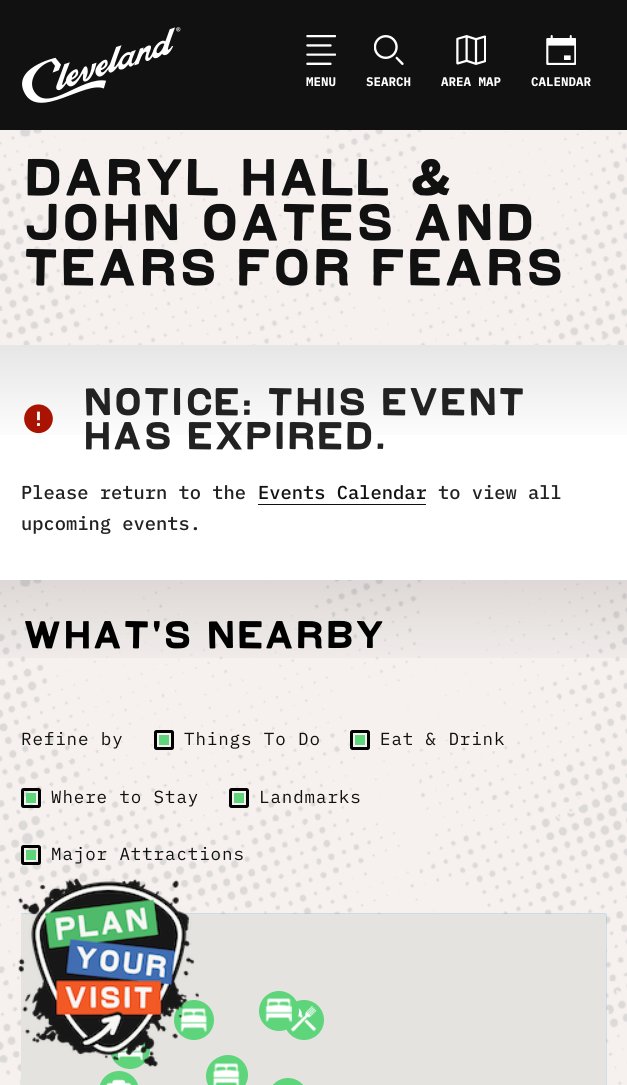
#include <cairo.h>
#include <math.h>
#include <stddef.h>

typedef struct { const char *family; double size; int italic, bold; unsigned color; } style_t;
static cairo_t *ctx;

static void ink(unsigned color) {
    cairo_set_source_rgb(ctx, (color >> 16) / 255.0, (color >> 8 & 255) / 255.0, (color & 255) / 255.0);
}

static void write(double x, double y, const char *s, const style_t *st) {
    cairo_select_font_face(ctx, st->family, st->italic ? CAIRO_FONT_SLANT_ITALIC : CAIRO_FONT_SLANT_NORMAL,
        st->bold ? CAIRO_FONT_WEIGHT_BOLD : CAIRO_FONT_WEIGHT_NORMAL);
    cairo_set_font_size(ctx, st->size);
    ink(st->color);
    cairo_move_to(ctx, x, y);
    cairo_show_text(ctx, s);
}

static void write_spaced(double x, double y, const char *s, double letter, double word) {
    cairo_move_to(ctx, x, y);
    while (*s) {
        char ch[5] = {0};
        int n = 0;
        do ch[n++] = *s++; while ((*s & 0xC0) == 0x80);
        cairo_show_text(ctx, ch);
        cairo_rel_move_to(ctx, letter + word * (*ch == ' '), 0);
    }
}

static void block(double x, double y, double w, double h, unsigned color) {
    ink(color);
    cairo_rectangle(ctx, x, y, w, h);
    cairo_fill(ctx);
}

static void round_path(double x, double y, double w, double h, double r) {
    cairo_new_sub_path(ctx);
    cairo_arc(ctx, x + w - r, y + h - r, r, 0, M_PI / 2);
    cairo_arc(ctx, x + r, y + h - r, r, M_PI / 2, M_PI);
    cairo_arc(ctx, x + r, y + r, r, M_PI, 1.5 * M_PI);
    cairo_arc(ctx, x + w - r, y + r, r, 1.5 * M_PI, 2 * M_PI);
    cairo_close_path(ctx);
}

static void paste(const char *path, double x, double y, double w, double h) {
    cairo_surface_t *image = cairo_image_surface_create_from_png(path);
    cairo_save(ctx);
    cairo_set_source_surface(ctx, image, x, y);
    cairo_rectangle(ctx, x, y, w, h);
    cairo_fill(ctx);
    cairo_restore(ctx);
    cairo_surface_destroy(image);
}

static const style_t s1 = {"IBM Plex Mono", 12.5, 0, 1, 0xffffff};
static const style_t s2 = {"IBM Plex Mono Medium", 18.75, 0, 0, 0x222222};
static const style_t s3 = {"IBM Plex Mono Medium", 18.75, 0, 0, 0x111111};

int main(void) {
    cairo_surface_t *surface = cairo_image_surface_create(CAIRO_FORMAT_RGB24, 627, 1085);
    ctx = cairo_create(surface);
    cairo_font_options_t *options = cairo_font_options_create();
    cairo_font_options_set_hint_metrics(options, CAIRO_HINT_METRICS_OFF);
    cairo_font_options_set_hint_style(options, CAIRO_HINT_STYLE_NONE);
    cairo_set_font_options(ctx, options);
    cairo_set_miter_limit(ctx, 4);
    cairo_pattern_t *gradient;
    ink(0xffffff);
    cairo_paint(ctx);
    block(0, 0, 627, 130, 0x111111);
    paste("pic1.png", 22, 27, 159, 76);
    paste("pic2.png", 306, 35, 30, 30);
    write(306, 86, "MENU", &s1);
    paste("pic3.png", 374, 35, 30, 30);
    write(366, 86, "SEARCH", &s1);
    paste("pic4.png", 456, 35, 30, 30);
    write(441, 86, "AREA MAP", &s1);
    paste("pic5.png", 546, 35, 30, 30);
    write(531, 86, "CALENDAR", &s1);
    paste("pic6.png", 0, 130, 627, 215);
    cairo_select_font_face(ctx, "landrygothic", CAIRO_FONT_SLANT_NORMAL, CAIRO_FONT_WEIGHT_NORMAL);
    cairo_set_font_size(ctx, 45.1);
    ink(0x111111);
    write_spaced(21, 195, "DARYL HALL &", -4.5, 0);
    write_spaced(21, 240, "JOHN OATES AND", -4.5, 0);
    write_spaced(21, 285, "TEARS FOR FEARS", -4.5, 0);
    gradient = cairo_pattern_create_linear(314, 345, 314, 445);
    cairo_pattern_add_color_stop_rgba(gradient, 0, 0.902, 0.902, 0.902, 1);
    cairo_pattern_add_color_stop_rgba(gradient, 1, 1, 1, 1, 1);
    cairo_set_source(ctx, gradient);
    cairo_pattern_destroy(gradient);
    cairo_rectangle(ctx, 0, 345, 627, 90);
    cairo_fill(ctx);
    paste("pic7.png", 24, 404, 29, 30);
    cairo_set_font_size(ctx, 33.75);
    ink(0x222222);
    write_spaced(81, 415, "NOTICE: THIS EVENT", -3.4, 0);
    write_spaced(81, 449, "HAS EXPIRED.", -3.4, 0);
    write(21, 499, "Please return to the", &s2);
    write(258, 499, "Events Calendar", &s3);
    block(258, 504, 168, 1, 0x111111);
    write(438, 499, "to view all", &s2);
    write(21, 530, "upcoming events.", &s2);
    paste("pic8.png", 0, 580, 627, 505);
    gradient = cairo_pattern_create_linear(314, 580, 314, 680);
    cairo_pattern_add_color_stop_rgba(gradient, 0, 0, 0, 0, 0.1);
    cairo_pattern_add_color_stop_rgba(gradient, 1, 0, 0, 0, 0);
    cairo_set_source(ctx, gradient);
    cairo_pattern_destroy(gradient);
    cairo_rectangle(ctx, 0, 580, 627, 78);
    cairo_fill(ctx);
    cairo_select_font_face(ctx, "landrygothic", CAIRO_FONT_SLANT_NORMAL, CAIRO_FONT_WEIGHT_NORMAL);
    cairo_set_font_size(ctx, 33.75);
    ink(0x000000);
    write_spaced(21, 648, "What's Nearby", -3.4, 0);
    cairo_select_font_face(ctx, "IBM Plex Mono", CAIRO_FONT_SLANT_NORMAL, CAIRO_FONT_WEIGHT_NORMAL);
    cairo_set_font_size(ctx, 17.5);
    ink(0x111111);
    write_spaced(21, 745, "Refine by", 0.9, 0);
    round_path(155.5, 731.5, 17, 17, 1);
    ink(0x000000);
    cairo_set_line_width(ctx, 3);
    cairo_stroke(ctx);
    ink(0x111111);
    write_spaced(184, 745, "Things To Do", 0.9, 0);
    block(159, 735, 10, 10, 0x5ed47b);
    round_path(351.5, 731.5, 17, 17, 1);
    ink(0x000000);
    cairo_stroke(ctx);
    ink(0x111111);
    write_spaced(380, 745, "Eat & Drink", 0.9, 0);
    block(355, 735, 10, 10, 0x5ed47b);
    round_path(22.5, 789.5, 17, 17, 1);
    ink(0x000000);
    cairo_stroke(ctx);
    ink(0x111111);
    write_spaced(51, 803, "Where to Stay", 0.9, 0);
    block(26, 793, 10, 10, 0x5ed47b);
    round_path(230.5, 789.5, 17, 17, 1);
    ink(0x000000);
    cairo_stroke(ctx);
    ink(0x111111);
    write_spaced(259, 803, "Landmarks", 0.9, 0);
    block(234, 793, 10, 10, 0x5ed47b);
    round_path(22.5, 846.5, 17, 17, 1);
    ink(0x000000);
    cairo_stroke(ctx);
    ink(0x111111);
    write_spaced(51, 860, "Major Attractions", 0.9, 0);
    block(26, 850, 10, 10, 0x5ed47b);
    paste("pic9.png", 21, 913, 586, 172);
    block(21, 914, 585, 171, 0xe5e3df);
    ink(0x5ed47b);
    cairo_arc(ctx, 194, 1020, 20, 0, 2 * M_PI);
    cairo_fill(ctx);
    paste("pic10.png", 180, 1008, 27, 24);
    cairo_arc(ctx, 304, 1020, 20, 0, 2 * M_PI);
    cairo_fill(ctx);
    paste("pic12.png", 291, 1006, 26, 26);
    cairo_arc(ctx, 279, 1011, 20, 0, 2 * M_PI);
    cairo_fill(ctx);
    paste("pic11.png", 265, 998, 27, 24);
    cairo_arc(ctx, 130, 1049, 20, 0, 2 * M_PI);
    cairo_fill(ctx);
    paste("pic13.png", 118, 1042, 25, 19);
    cairo_arc(ctx, 228, 1075, 20, 0, 2 * M_PI);
    cairo_fill(ctx);
    round_path(99, 1071, 40, 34, 20);
    cairo_fill(ctx);
    paste("pic14.png", 106, 1079, 26, 6);
    cairo_arc(ctx, 226, 1076, 20, 0, 2 * M_PI);
    cairo_fill(ctx);
    paste("pic15.png", 213, 1063, 27, 22);
    round_path(268, 1078, 40, 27, 20);
    cairo_fill(ctx);
    paste("pic16.png", 18, 878, 181, 189);
    cairo_surface_write_to_png(surface, "screenshot.png");
    cairo_font_options_destroy(options);
    cairo_destroy(ctx);
    cairo_surface_destroy(surface);
    return 0;
}
